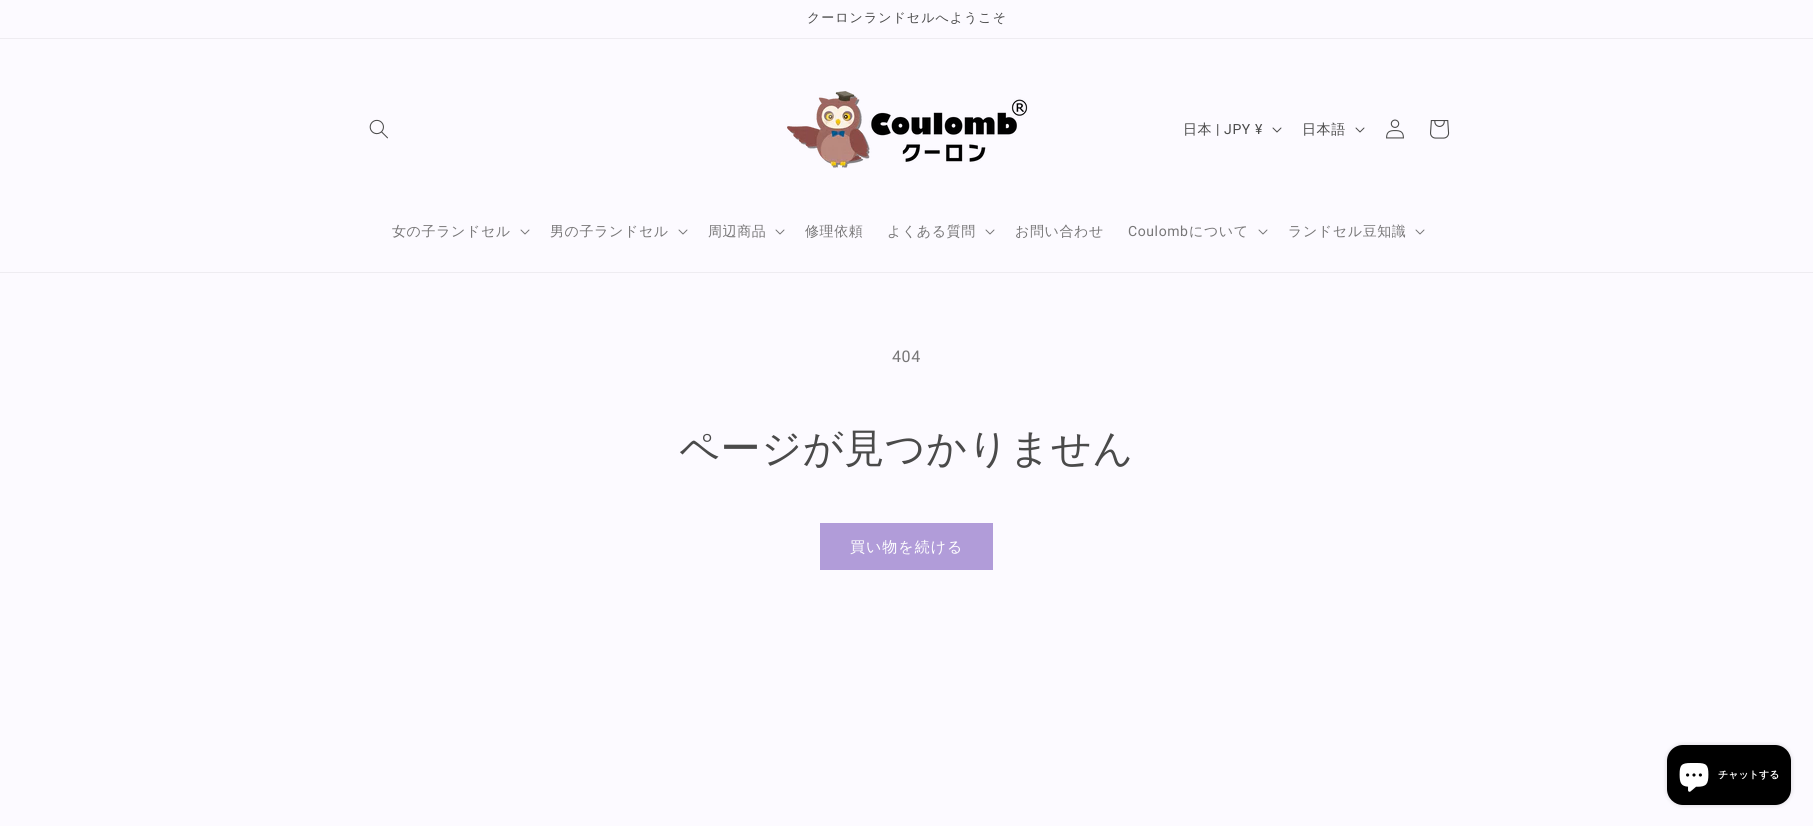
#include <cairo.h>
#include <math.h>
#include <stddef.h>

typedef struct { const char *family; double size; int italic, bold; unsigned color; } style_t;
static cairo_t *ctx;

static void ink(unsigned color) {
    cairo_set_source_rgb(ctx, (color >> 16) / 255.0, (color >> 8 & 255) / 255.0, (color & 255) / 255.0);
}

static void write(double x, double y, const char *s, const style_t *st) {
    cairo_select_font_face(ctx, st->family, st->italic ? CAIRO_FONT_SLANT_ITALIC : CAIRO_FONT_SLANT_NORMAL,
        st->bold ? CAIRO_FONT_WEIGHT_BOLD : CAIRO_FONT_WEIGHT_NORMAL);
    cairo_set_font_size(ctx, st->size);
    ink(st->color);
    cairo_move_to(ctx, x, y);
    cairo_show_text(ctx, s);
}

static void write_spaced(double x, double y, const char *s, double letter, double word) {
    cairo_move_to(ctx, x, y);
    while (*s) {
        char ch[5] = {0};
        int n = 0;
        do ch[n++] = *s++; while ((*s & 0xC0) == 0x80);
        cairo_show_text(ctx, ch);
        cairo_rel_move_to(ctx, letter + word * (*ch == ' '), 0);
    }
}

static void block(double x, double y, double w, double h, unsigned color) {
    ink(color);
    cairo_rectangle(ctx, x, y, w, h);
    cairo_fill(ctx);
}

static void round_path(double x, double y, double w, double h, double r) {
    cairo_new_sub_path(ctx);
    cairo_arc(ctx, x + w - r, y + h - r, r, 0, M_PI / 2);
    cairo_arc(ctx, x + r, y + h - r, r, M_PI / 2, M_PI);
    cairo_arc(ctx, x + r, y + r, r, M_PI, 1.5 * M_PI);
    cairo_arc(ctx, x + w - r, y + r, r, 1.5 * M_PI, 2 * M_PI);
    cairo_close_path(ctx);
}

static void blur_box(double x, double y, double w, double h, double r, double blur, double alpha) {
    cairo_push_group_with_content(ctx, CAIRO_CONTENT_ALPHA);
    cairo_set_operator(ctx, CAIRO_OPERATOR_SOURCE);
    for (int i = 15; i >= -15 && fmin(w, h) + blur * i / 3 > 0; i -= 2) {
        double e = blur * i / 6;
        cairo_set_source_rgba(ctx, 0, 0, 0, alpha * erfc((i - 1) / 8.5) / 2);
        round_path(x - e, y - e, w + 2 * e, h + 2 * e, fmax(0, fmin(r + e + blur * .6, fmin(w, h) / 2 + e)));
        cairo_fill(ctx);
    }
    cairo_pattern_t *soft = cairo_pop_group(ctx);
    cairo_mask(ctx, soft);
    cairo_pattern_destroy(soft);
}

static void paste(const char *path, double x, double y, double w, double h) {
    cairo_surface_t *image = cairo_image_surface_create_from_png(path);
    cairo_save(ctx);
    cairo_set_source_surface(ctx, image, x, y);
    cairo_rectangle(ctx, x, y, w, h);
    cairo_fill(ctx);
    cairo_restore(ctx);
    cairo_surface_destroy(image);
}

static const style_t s1 = {"WenQuanYi Zen Hei", 10, 0, 1, 0xffffff};

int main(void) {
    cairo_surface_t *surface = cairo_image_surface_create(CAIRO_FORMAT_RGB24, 1813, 826);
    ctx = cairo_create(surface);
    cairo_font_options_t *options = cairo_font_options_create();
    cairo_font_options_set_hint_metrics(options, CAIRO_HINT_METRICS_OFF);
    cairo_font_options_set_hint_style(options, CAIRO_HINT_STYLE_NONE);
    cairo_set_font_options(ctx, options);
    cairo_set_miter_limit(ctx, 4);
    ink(0xfcfaff);
    cairo_paint(ctx);
    block(0, 38, 1813, 1, 0xeeecf1);
    cairo_select_font_face(ctx, "WenQuanYi Zen Hei Medium", CAIRO_FONT_SLANT_NORMAL, CAIRO_FONT_WEIGHT_NORMAL);
    cairo_set_font_size(ctx, 13);
    ink(0x4a4a4a);
    write_spaced(807, 22, "クーロンランドセルへようこそ", 1, 0);
    block(0, 272, 1813, 1, 0xeeecf1);
    paste("pic1.png", 369, 119, 19, 20);
    paste("pic2.png", 787, 91, 241, 77);
    cairo_set_font_size(ctx, 14);
    ink(0x4a4a4a);
    write_spaced(1183, 134, "日本", 0.6, 0);
    cairo_select_font_face(ctx, "Roboto", CAIRO_FONT_SLANT_NORMAL, CAIRO_FONT_WEIGHT_NORMAL);
    write_spaced(1216, 134, "| JPY ¥", 0.6, 0);
    paste("pic3.png", 1272, 127, 10, 6);
    cairo_select_font_face(ctx, "WenQuanYi Zen Hei Medium", CAIRO_FONT_SLANT_NORMAL, CAIRO_FONT_WEIGHT_NORMAL);
    write_spaced(1302, 134, "日本語", 0.6, 0);
    paste("pic3.png", 1355, 127, 10, 6);
    paste("pic4.png", 1386, 119, 18, 20);
    paste("pic5.png", 1430, 120, 20, 19);
    ink(0x777677);
    write_spaced(392, 236, "女の子ランドセル", 0.6, 0);
    paste("pic6.png", 520, 229, 10, 6);
    write_spaced(550, 236, "男の子ランドセル", 0.6, 0);
    paste("pic6.png", 678, 229, 10, 6);
    write_spaced(708, 236, "周辺商品", 0.6, 0);
    paste("pic6.png", 775, 229, 10, 6);
    write_spaced(805, 236, "修理依頼", 0.6, 0);
    write_spaced(887, 236, "よくある質問", 0.6, 0);
    paste("pic6.png", 985, 229, 10, 6);
    write_spaced(1015, 236, "お問い合わせ", 0.6, 0);
    cairo_select_font_face(ctx, "Roboto", CAIRO_FONT_SLANT_NORMAL, CAIRO_FONT_WEIGHT_NORMAL);
    write_spaced(1128, 236, "Coulomb", 0.6, 0);
    cairo_select_font_face(ctx, "WenQuanYi Zen Hei Medium", CAIRO_FONT_SLANT_NORMAL, CAIRO_FONT_WEIGHT_NORMAL);
    write_spaced(1189, 236, "について", 0.6, 0);
    paste("pic6.png", 1258, 229, 10, 6);
    write_spaced(1288, 236, "ランドセル豆知識", 0.6, 0);
    paste("pic6.png", 1415, 229, 10, 6);
    cairo_select_font_face(ctx, "Roboto", CAIRO_FONT_SLANT_NORMAL, CAIRO_FONT_WEIGHT_NORMAL);
    cairo_set_font_size(ctx, 16);
    write_spaced(892, 362, "404", 0.6, 0);
    cairo_select_font_face(ctx, "WenQuanYi Zen Hei Medium", CAIRO_FONT_SLANT_NORMAL, CAIRO_FONT_WEIGHT_NORMAL);
    cairo_set_font_size(ctx, 40);
    ink(0x4a4a4a);
    write_spaced(679, 462, "ページが見つかりません", 0.6, 0);
    block(820, 523, 173, 47, 0xb19cd9);
    cairo_set_font_size(ctx, 15);
    ink(0xffffff);
    write_spaced(850, 552, "買い物を続ける", 1, 0);
    ink(0x000000);
    blur_box(1667, 745, 124, 60, 16, 2.5, 0.15);
    ink(0x000000);
    round_path(1667, 745, 124, 60, 16);
    cairo_fill(ctx);
    paste("pic7.png", 1679, 763, 30, 29);
    write(1718, 778, "チャットする", &s1);
    cairo_surface_write_to_png(surface, "screenshot.png");
    cairo_font_options_destroy(options);
    cairo_destroy(ctx);
    cairo_surface_destroy(surface);
    return 0;
}
